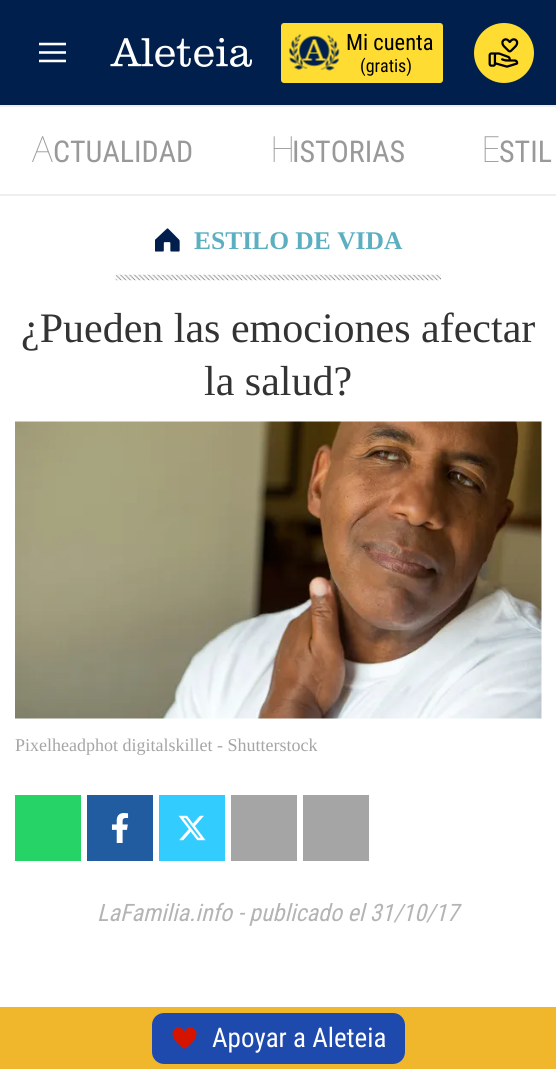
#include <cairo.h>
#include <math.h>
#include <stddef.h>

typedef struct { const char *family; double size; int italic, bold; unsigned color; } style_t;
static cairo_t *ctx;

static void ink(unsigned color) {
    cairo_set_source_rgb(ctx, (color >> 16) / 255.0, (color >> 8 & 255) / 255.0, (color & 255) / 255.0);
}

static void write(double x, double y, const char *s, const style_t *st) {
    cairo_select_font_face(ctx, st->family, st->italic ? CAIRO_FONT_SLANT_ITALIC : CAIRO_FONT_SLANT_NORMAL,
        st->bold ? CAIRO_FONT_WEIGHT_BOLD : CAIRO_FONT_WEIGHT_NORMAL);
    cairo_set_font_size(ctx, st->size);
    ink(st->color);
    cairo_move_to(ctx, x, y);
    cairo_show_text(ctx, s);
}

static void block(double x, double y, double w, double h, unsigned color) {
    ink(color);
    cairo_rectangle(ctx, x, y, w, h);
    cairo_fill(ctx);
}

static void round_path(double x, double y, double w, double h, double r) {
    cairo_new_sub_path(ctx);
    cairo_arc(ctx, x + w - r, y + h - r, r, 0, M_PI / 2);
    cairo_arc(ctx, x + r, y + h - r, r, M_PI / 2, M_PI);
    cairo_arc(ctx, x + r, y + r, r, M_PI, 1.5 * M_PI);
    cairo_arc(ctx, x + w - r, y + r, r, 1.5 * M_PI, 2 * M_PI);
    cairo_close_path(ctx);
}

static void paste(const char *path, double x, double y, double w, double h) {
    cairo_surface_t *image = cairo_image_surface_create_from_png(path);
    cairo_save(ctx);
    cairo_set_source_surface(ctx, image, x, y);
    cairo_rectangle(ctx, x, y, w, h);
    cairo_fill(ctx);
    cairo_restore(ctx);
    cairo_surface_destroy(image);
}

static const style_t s1 = {"Roboto Condensed", 22.5, 0, 0, 0x000000};
static const style_t s2 = {"Roboto Condensed", 18, 0, 0, 0x000000};
static const style_t s3 = {"Noto Sans Thin", 36, 0, 0, 0x999999};
static const style_t s4 = {"Roboto Condensed", 30, 0, 0, 0x999999};
static const style_t s5 = {"Liberation Serif", 25.5, 0, 1, 0x5bafc0};
static const style_t s6 = {"Liberation Serif", 42, 0, 0, 0x333333};
static const style_t s7 = {"Liberation Serif", 18, 0, 0, 0xa5a5a5};
static const style_t s8 = {"Roboto Condensed", 24, 1, 0, 0xb4b4b4};
static const style_t s9 = {"Roboto Condensed", 27, 0, 0, 0xffffff};

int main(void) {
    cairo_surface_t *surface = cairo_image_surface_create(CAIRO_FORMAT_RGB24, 556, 1069);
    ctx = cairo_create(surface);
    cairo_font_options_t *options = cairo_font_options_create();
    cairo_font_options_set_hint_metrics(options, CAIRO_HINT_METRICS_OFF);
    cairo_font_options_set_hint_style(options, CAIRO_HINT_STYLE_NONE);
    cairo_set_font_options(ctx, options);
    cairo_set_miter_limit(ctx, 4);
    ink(0xffffff);
    cairo_paint(ctx);
    block(0, 0, 556, 105, 0x001f4d);
    paste("pic1.png", 39, 42, 27, 21);
    paste("pic2.png", 110, 38, 142, 29);
    ink(0xffdc31);
    round_path(281, 23, 162, 60, 3);
    cairo_fill(ctx);
    paste("pic3.png", 289, 34, 51, 37);
    write(346, 50, "Mi cuenta", &s1);
    write(360, 72, "(gratis)", &s2);
    ink(0xffdc31);
    cairo_new_path(ctx);
    cairo_arc(ctx, 504, 53, 30, 0, 2 * M_PI);
    cairo_fill(ctx);
    paste("pic4.png", 488, 38, 31, 30);
    block(0, 105, 556, 2, 0xeeeeee);
    block(0, 194, 556, 2, 0xeeeeee);
    write(32, 162, "A", &s3);
    write(53, 162, "CTUALIDAD", &s4);
    write(270, 162, "H", &s3);
    write(292, 162, "ISTORIAS", &s4);
    write(481, 162, "E", &s3);
    write(499, 162, "STIL", &s4);
    paste("pic5.png", 155, 228, 25, 24);
    write(194, 249, "ESTILO DE VIDA", &s5);
    paste("pic6.png", 115, 274, 326, 7);
    write(21, 342, "¿Pueden las emociones afectar", &s6);
    write(204, 395, "la salud?", &s6);
    paste("pic7.png", 15, 421, 527, 298);
    write(15, 751, "Pixelheadphot digitalskillet - Shutterstock", &s7);
    block(15, 795, 66, 66, 0x25d366);
    block(87, 795, 66, 66, 0x225ca0);
    paste("pic8.png", 111, 813, 18, 30);
    block(159, 795, 66, 66, 0x33ccff);
    paste("pic9.png", 178, 815, 28, 26);
    block(231, 795, 66, 66, 0xa5a5a5);
    block(303, 795, 66, 66, 0xa5a5a5);
    write(97, 921, "LaFamilia.info - publicado el 31/10/17", &s8);
    block(0, 1007, 556, 62, 0xf0b72c);
    ink(0x1f4aad);
    round_path(152, 1013, 253, 51, 12);
    cairo_fill(ctx);
    paste("pic10.png", 172, 1027, 25, 22);
    write(212, 1047, "Apoyar a Aleteia", &s9);
    cairo_surface_write_to_png(surface, "screenshot.png");
    cairo_font_options_destroy(options);
    cairo_destroy(ctx);
    cairo_surface_destroy(surface);
    return 0;
}
